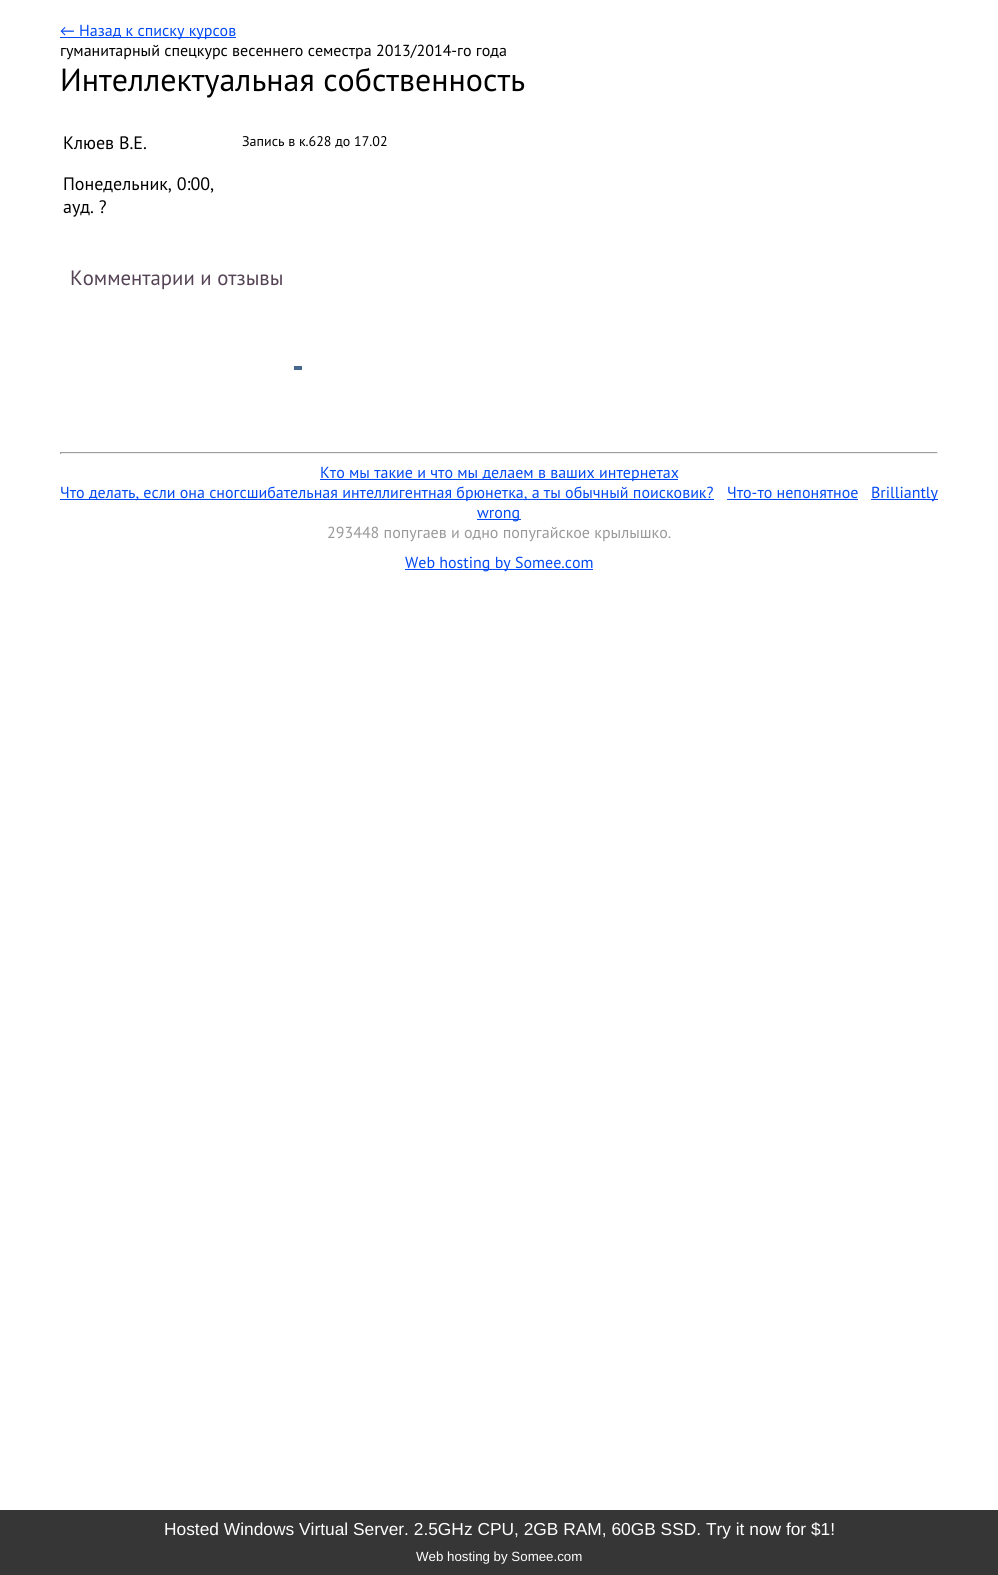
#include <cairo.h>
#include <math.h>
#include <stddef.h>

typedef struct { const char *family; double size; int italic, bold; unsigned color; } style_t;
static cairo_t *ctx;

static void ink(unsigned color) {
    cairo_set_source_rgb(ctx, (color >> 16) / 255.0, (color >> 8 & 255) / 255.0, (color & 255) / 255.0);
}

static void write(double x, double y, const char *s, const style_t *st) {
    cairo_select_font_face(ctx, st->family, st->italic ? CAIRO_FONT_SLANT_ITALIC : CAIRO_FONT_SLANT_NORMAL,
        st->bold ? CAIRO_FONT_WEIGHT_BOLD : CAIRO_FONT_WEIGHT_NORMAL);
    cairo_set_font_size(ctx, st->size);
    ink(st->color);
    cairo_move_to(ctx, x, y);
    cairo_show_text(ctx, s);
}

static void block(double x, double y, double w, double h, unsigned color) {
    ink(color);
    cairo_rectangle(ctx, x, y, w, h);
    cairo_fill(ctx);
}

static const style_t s1 = {"Carlito", 16, 0, 0, 0x034af3};
static const style_t s2 = {"PT Sans", 16, 0, 0, 0x034af3};
static const style_t s3 = {"PT Sans", 16, 0, 0, 0x000000};
static const style_t s4 = {"PT Sans", 32, 0, 0, 0x000000};
static const style_t s5 = {"PT Sans", 18, 0, 0, 0x000000};
static const style_t s6 = {"PT Sans", 14, 0, 0, 0x000000};
static const style_t s7 = {"PT Sans", 20.75, 0, 0, 0x554455};
static const style_t s8 = {"PT Sans", 16, 0, 0, 0x999999};
static const style_t s9 = {"Liberation Sans", 17.35, 0, 0, 0xffffff};
static const style_t s10 = {"Liberation Sans", 13.3, 0, 0, 0xffffff};

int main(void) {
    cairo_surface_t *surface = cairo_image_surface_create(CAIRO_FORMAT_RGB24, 998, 1575);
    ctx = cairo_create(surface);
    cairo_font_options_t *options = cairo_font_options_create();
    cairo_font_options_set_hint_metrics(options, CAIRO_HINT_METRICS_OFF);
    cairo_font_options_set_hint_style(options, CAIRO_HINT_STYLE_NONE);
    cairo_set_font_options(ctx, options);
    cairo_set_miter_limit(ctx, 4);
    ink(0xffffff);
    cairo_paint(ctx);
    write(60, 36, "←", &s1);
    block(60, 37, 176, 1, 0x034af3);
    write(79, 36, "Назад к списку курсов", &s2);
    write(60, 56, "гуманитарный спецкурс весеннего семестра 2013/2014-го года", &s3);
    write(60, 91, "Интеллектуальная собственность", &s4);
    write(63, 149, "Клюев В.Е.", &s5);
    write(63, 190, "Понедельник, 0:00,", &s5);
    write(63, 213, "ауд. ?", &s5);
    write(242, 146, "Запись в к.628 до 17.02", &s6);
    write(70, 285, "Комментарии и отзывы", &s7);
    block(294, 366, 8, 4, 0x45688e);
    block(60, 452, 878, 1, 0x9f9f9f);
    block(937, 452, 1, 2, 0xeeeeee);
    block(60, 453, 878, 1, 0xeeeeee);
    block(60, 452, 1, 2, 0x9f9f9f);
    block(320, 479, 358, 1, 0x034af3);
    write(320, 478, "Кто мы такие и что мы делаем в ваших интернетах", &s2);
    block(60, 499, 654, 1, 0x034af3);
    write(60, 498, "Что делать, если она сногсшибательная интеллигентная брюнетка, а ты обычный поисковик?", &s2);
    write(727, 498, "Что-то непонятное", &s2);
    block(727, 499, 131, 1, 0x034af3);
    block(871, 499, 67, 1, 0x034af3);
    write(871, 498, "Brilliantly", &s2);
    block(477, 519, 44, 1, 0x034af3);
    write(477, 518, "wrong", &s2);
    write(327, 538, "293448 попугаев и одно попугайское крылышко.", &s8);
    block(405, 569, 188, 1, 0x034af3);
    write(405, 568, "Web hosting by Somee.com", &s2);
    block(0, 1510, 998, 65, 0x363636);
    write(164, 1535, "Hosted Windows Virtual Server. 2.5GHz CPU, 2GB RAM, 60GB SSD. Try it now for $1!", &s9);
    write(416, 1561, "Web hosting by Somee.com", &s10);
    cairo_surface_write_to_png(surface, "screenshot.png");
    cairo_font_options_destroy(options);
    cairo_destroy(ctx);
    cairo_surface_destroy(surface);
    return 0;
}
